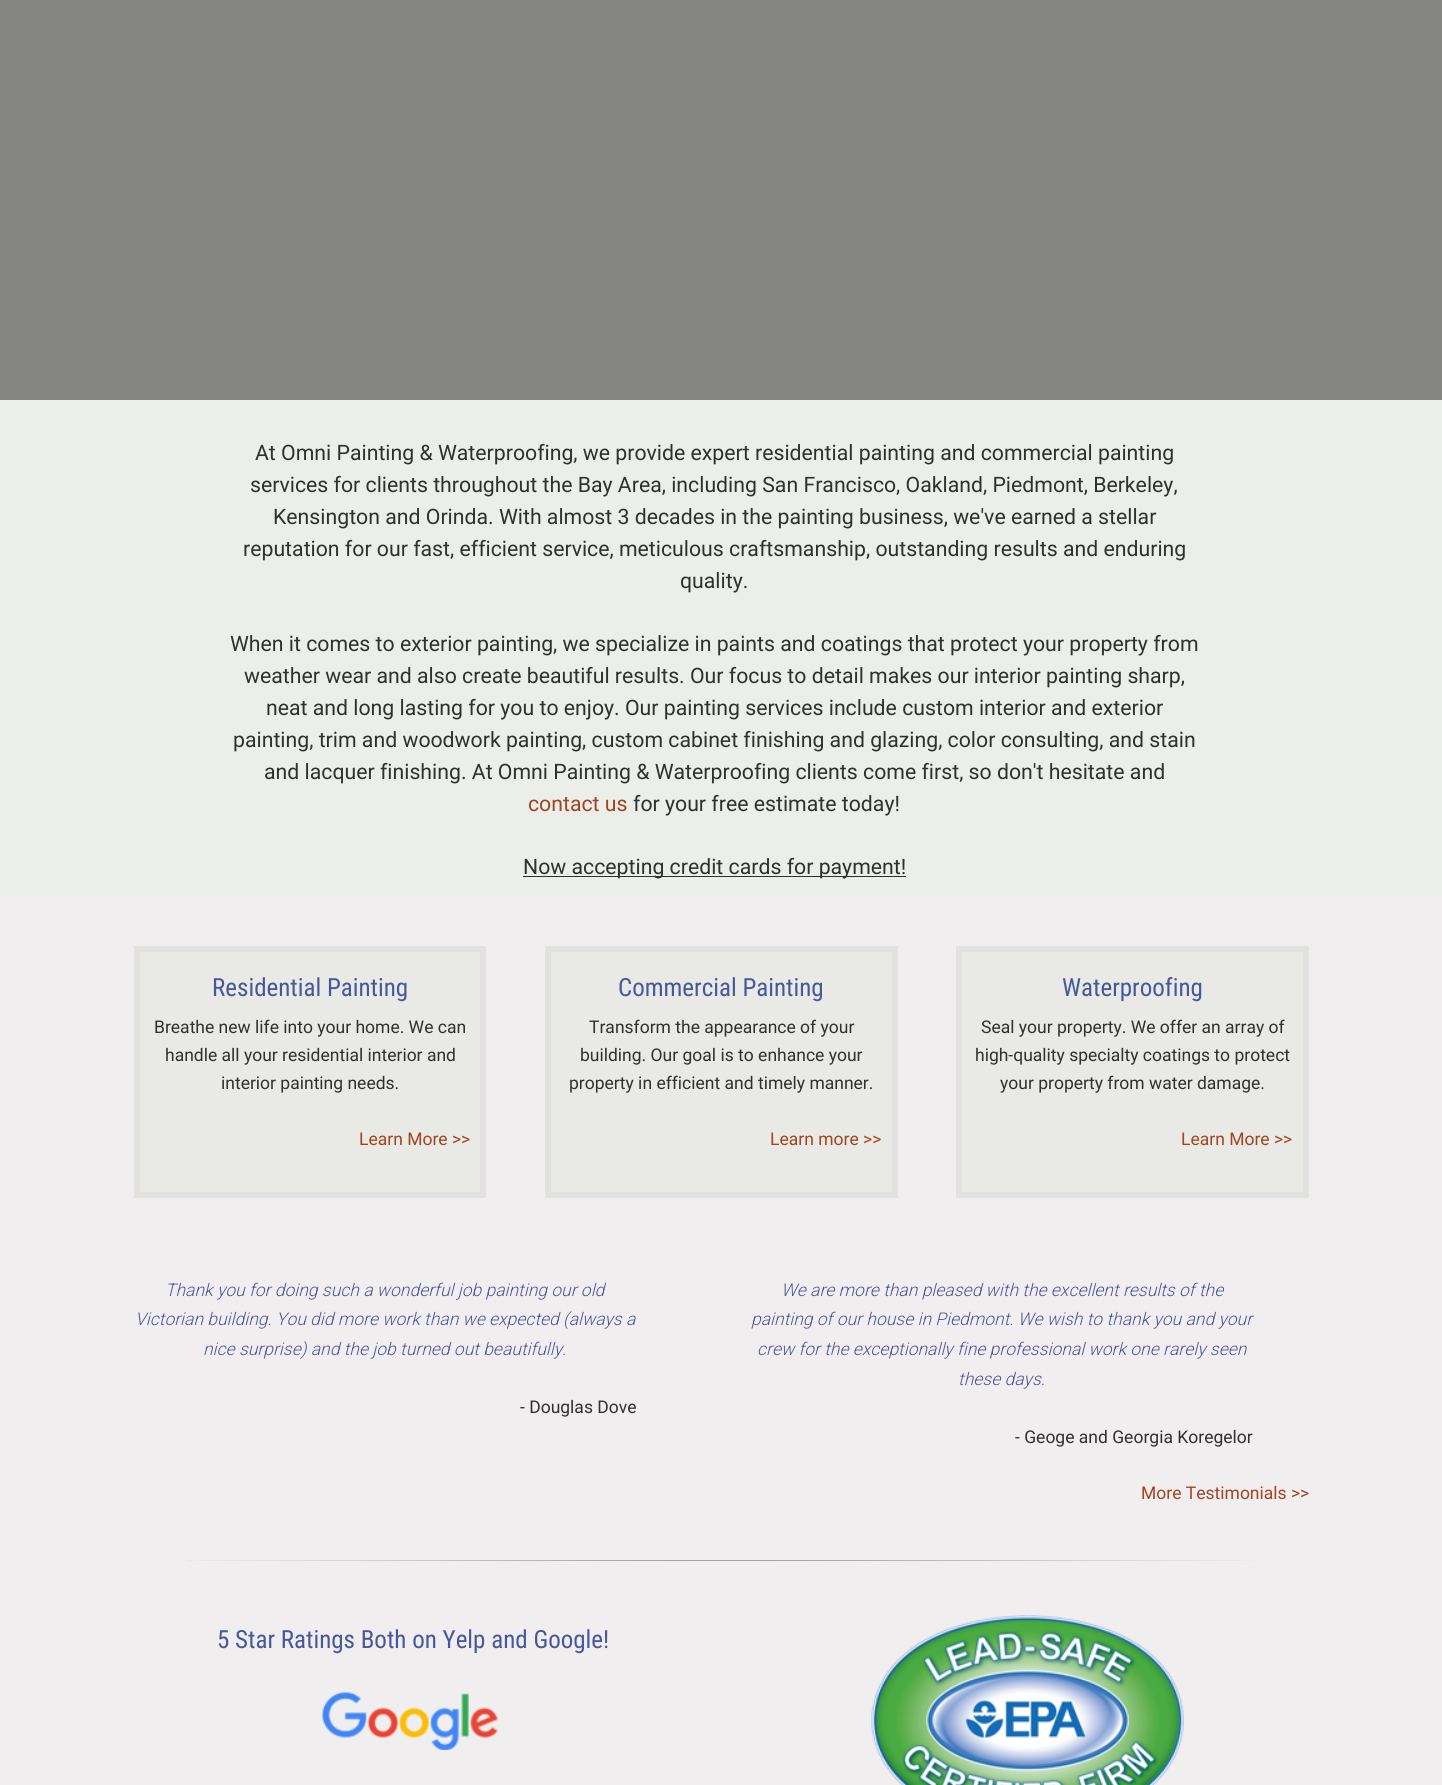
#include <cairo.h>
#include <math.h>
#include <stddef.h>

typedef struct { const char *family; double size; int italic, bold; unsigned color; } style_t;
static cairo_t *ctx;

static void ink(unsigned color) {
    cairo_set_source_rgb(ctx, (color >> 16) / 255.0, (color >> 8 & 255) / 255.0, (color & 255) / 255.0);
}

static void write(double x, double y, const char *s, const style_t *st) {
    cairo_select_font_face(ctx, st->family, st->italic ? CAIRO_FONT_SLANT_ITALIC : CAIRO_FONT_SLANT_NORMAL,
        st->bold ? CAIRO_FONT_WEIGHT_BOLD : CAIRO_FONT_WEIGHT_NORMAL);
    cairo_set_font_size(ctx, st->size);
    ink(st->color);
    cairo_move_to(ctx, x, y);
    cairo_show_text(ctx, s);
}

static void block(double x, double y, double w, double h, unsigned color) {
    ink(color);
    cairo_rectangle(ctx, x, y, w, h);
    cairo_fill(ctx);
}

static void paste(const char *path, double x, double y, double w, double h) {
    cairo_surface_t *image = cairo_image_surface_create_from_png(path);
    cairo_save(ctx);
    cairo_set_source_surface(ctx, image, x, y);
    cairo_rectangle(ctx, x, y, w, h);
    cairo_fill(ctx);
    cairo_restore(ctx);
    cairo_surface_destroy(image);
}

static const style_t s1 = {"Roboto", 21.25, 0, 0, 0x303030};
static const style_t s2 = {"Roboto", 21.25, 0, 0, 0xa14421};
static const style_t s3 = {"Roboto Condensed", 25, 0, 0, 0x46589b};
static const style_t s4 = {"Roboto", 17.5, 0, 0, 0x303030};
static const style_t s5 = {"Roboto", 17.5, 0, 0, 0xa14421};
static const style_t s6 = {"Roboto Light", 17.5, 1, 0, 0x4c569a};

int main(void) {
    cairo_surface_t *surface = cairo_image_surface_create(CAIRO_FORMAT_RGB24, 1442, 1785);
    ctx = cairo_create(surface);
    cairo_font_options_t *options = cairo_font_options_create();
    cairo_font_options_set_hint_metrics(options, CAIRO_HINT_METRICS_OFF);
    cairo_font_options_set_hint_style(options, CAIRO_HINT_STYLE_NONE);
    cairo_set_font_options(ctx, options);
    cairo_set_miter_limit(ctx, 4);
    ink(0x858684);
    cairo_paint(ctx);
    block(0, 400, 1442, 496, 0xeceee9);
    write(255, 460, "At Omni Painting & Waterproofing, we provide expert residential painting and commercial painting", &s1);
    write(250, 492, "services for clients throughout the Bay Area, including San Francisco, Oakland, Piedmont, Berkeley,", &s1);
    write(273, 524, "Kensington and Orinda. With almost 3 decades in the painting business, we've earned a stellar", &s1);
    write(243, 556, "reputation for our fast, efficient service, meticulous craftsmanship, outstanding results and enduring", &s1);
    write(680, 588, "quality.", &s1);
    write(230, 651, "When it comes to exterior painting, we specialize in paints and coatings that protect your property from", &s1);
    write(244, 683, "weather wear and also create beautiful results. Our focus to detail makes our interior painting sharp,", &s1);
    write(266, 715, "neat and long lasting for you to enjoy. Our painting services include custom interior and exterior", &s1);
    write(233, 747, "painting, trim and woodwork painting, custom cabinet finishing and glazing, color consulting, and stain", &s1);
    write(264, 779, "and lacquer finishing. At Omni Painting & Waterproofing clients come first, so don't hesitate and", &s1);
    write(528, 811, "contact us", &s2);
    write(633, 811, "for your free estimate today!", &s1);
    block(523, 876, 383, 1, 0x303030);
    write(523, 874, "Now accepting credit cards for payment!", &s1);
    block(0, 896, 1442, 889, 0xf0eeef);
    block(140, 952, 340, 240, 0xe9eae5);
    cairo_rectangle(ctx, 136.5, 948.5, 347, 247);
    ink(0xe1e1df);
    cairo_set_line_width(ctx, 5);
    cairo_stroke(ctx);
    cairo_rectangle(ctx, 139.5, 951.5, 341, 241);
    cairo_set_line_width(ctx, 1);
    cairo_stroke(ctx);
    write(212, 996, "Residential Painting", &s3);
    write(154, 1033, "Breathe new life into your home. We can", &s4);
    write(165, 1061, "handle all your residential interior and", &s4);
    write(221, 1089, "interior painting needs.", &s4);
    write(359, 1145, "Learn More >>", &s5);
    block(551, 952, 341, 240, 0xe9eae5);
    cairo_rectangle(ctx, 547.5, 948.5, 348, 247);
    ink(0xe1e1df);
    cairo_set_line_width(ctx, 5);
    cairo_stroke(ctx);
    cairo_rectangle(ctx, 550.5, 951.5, 342, 241);
    cairo_set_line_width(ctx, 1);
    cairo_stroke(ctx);
    write(618, 996, "Commercial Painting", &s3);
    write(589, 1033, "Transform the appearance of your", &s4);
    write(580, 1061, "building. Our goal is to enhance your", &s4);
    write(569, 1089, "property in efficient and timely manner.", &s4);
    write(770, 1145, "Learn more >>", &s5);
    block(962, 952, 341, 240, 0xe9eae5);
    cairo_rectangle(ctx, 958.5, 948.5, 348, 247);
    ink(0xe1e1df);
    cairo_set_line_width(ctx, 5);
    cairo_stroke(ctx);
    cairo_rectangle(ctx, 961.5, 951.5, 342, 241);
    cairo_set_line_width(ctx, 1);
    cairo_stroke(ctx);
    write(1062, 996, "Waterproofing", &s3);
    write(981, 1033, "Seal your property. We offer an array of", &s4);
    write(975, 1061, "high-quality specialty coatings to protect", &s4);
    write(1000, 1089, "your property from water damage.", &s4);
    write(1181, 1145, "Learn More >>", &s5);
    write(165, 1296, "Thank you for doing such a wonderful job painting our old", &s6);
    write(135, 1325, "Victorian building. You did more work than we expected (always a", &s6);
    write(203, 1355, "nice surprise) and the job turned out beautifully.", &s6);
    write(520, 1413, "- Douglas Dove", &s4);
    write(781, 1296, "We are more than pleased with the excellent results of the", &s6);
    write(751, 1325, "painting of our house in Piedmont. We wish to thank you and your", &s6);
    write(757, 1355, "crew for the exceptionally fine professional work one rarely seen", &s6);
    write(958, 1385, "these days.", &s6);
    write(1015, 1443, "- Geoge and Georgia Koregelor", &s4);
    write(1141, 1499, "More Testimonials >>", &s5);
    paste("pic1.png", 187, 1560, 535, 1);
    paste("pic2.png", 721, 1560, 534, 1);
    write(217, 1648, "5 Star Ratings Both on Yelp and Google!", &s3);
    paste("pic3.png", 322, 1692, 176, 58);
    paste("pic4.png", 871, 1615, 313, 170);
    cairo_surface_write_to_png(surface, "screenshot.png");
    cairo_font_options_destroy(options);
    cairo_destroy(ctx);
    cairo_surface_destroy(surface);
    return 0;
}
